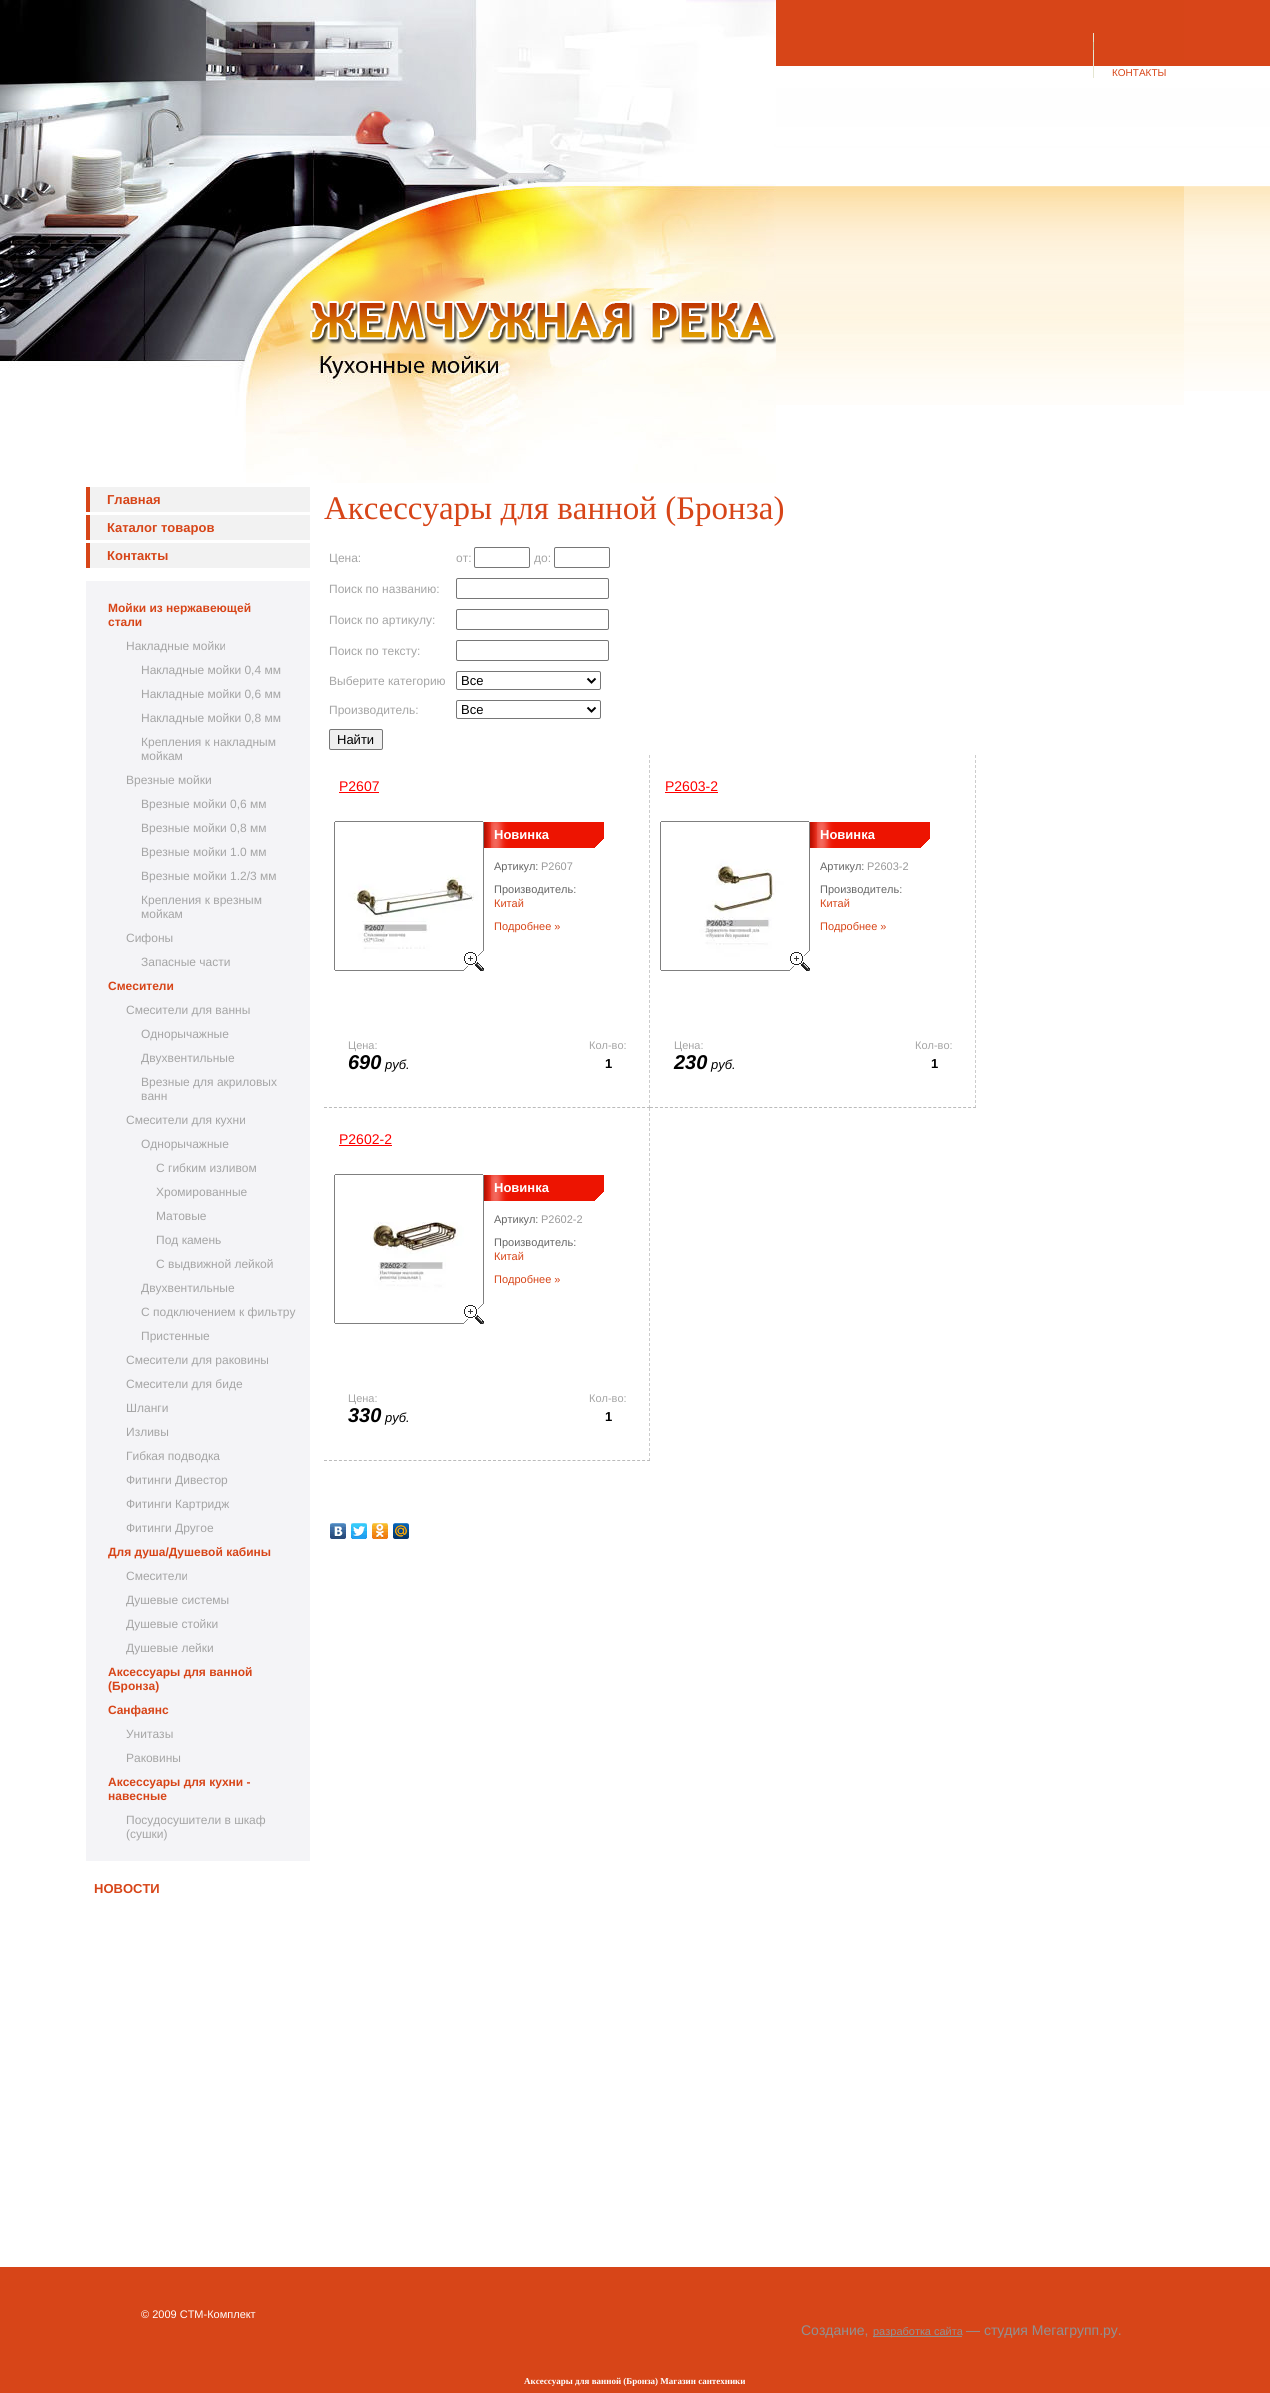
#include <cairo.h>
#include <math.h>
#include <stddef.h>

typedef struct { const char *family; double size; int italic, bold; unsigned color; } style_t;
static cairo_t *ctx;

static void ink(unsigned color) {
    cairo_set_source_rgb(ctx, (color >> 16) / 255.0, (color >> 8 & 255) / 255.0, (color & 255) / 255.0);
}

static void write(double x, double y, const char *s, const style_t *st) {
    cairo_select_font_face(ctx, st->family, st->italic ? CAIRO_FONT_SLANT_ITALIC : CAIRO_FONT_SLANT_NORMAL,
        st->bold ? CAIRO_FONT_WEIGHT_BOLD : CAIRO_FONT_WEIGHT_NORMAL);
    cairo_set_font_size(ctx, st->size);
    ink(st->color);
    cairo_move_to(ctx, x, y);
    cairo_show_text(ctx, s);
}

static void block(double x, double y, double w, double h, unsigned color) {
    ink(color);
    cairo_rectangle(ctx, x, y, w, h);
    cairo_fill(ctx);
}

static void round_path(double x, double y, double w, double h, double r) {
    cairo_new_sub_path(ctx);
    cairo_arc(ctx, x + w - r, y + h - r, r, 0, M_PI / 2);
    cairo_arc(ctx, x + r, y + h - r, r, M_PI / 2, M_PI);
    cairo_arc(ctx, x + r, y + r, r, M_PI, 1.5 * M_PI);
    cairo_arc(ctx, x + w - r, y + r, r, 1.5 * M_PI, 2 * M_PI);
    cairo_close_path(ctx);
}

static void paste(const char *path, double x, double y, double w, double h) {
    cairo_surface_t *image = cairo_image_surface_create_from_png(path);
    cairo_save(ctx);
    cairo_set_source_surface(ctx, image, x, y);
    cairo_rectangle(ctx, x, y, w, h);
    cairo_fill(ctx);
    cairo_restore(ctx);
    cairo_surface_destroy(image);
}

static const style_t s1 = {"Liberation Sans", 10, 0, 0, 0xd74518};
static const style_t s2 = {"Liberation Sans", 13, 0, 1, 0xd74518};
static const style_t s3 = {"Liberation Sans", 12, 0, 1, 0xd74518};
static const style_t s4 = {"Liberation Sans", 12, 0, 0, 0xa5a5a5};
static const style_t s5 = {"Liberation Serif", 33, 0, 0, 0xd74518};
static const style_t s6 = {"Liberation Sans", 13, 0, 0, 0x000000};
static const style_t s7 = {"Liberation Sans", 14, 0, 0, 0xff0000};
static const style_t s8 = {"Liberation Sans", 13, 0, 1, 0xffffff};
static const style_t s9 = {"Liberation Sans", 11, 0, 0, 0x666666};
static const style_t s10 = {"Liberation Sans", 11, 0, 0, 0x999999};
static const style_t s11 = {"Liberation Sans", 11, 0, 0, 0xd74518};
static const style_t s12 = {"Liberation Sans", 11, 0, 0, 0xa5a5a5};
static const style_t s13 = {"Liberation Sans", 20, 1, 1, 0x000000};
static const style_t s14 = {"Liberation Sans", 13, 1, 0, 0x000000};
static const style_t s15 = {"Liberation Sans", 13, 0, 1, 0x000000};
static const style_t s16 = {"Liberation Sans", 11, 0, 0, 0xffffff};
static const style_t s17 = {"Liberation Sans", 14, 0, 0, 0x919191};
static const style_t s18 = {"Liberation Sans", 11, 0, 0, 0x919191};
static const style_t s19 = {"Liberation Serif", 9, 0, 1, 0xffffff};

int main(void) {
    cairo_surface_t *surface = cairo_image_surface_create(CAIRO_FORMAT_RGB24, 1270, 2393);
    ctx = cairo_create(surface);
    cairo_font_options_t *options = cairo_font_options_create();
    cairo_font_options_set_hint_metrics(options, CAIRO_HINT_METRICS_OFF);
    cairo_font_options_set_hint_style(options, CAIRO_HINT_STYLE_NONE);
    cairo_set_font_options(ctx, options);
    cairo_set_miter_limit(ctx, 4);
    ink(0xffffff);
    cairo_paint(ctx);
    block(0, 2267, 1270, 126, 0xd74518);
    paste("pic1.png", 0, 0, 86, 368);
    paste("pic2.png", 776, 0, 408, 405);
    paste("pic3.png", 86, 0, 690, 483);
    paste("pic4.png", 1093, 33, 1, 45);
    write(1112, 76, "КОНТАКТЫ", &s1);
    block(90, 487, 220, 25, 0xf2f2f2);
    block(86, 487, 4, 25, 0xd74518);
    write(107, 504, "Главная", &s2);
    block(90, 515, 220, 25, 0xf2f2f2);
    block(86, 515, 4, 25, 0xd74518);
    write(107, 532, "Каталог товаров", &s2);
    block(90, 543, 220, 25, 0xf2f2f2);
    block(86, 543, 4, 25, 0xd74518);
    write(107, 560, "Контакты", &s2);
    block(86, 581, 224, 1280, 0xf4f4f7);
    write(108, 612, "Мойки из нержавеющей", &s3);
    write(108, 626, "стали", &s3);
    write(126, 650, "Накладные мойки", &s4);
    write(141, 674, "Накладные мойки 0,4 мм", &s4);
    write(141, 698, "Накладные мойки 0,6 мм", &s4);
    write(141, 722, "Накладные мойки 0,8 мм", &s4);
    write(141, 746, "Крепления к накладным", &s4);
    write(141, 760, "мойкам", &s4);
    write(126, 784, "Врезные мойки", &s4);
    write(141, 808, "Врезные мойки 0,6 мм", &s4);
    write(141, 832, "Врезные мойки 0,8 мм", &s4);
    write(141, 856, "Врезные мойки 1.0 мм", &s4);
    write(141, 880, "Врезные мойки 1.2/3 мм", &s4);
    write(141, 904, "Крепления к врезным", &s4);
    write(141, 918, "мойкам", &s4);
    write(126, 942, "Сифоны", &s4);
    write(141, 966, "Запасные части", &s4);
    write(108, 990, "Смесители", &s3);
    write(126, 1014, "Смесители для ванны", &s4);
    write(141, 1038, "Однорычажные", &s4);
    write(141, 1062, "Двухвентильные", &s4);
    write(141, 1086, "Врезные для акриловых", &s4);
    write(141, 1100, "ванн", &s4);
    write(126, 1124, "Смесители для кухни", &s4);
    write(141, 1148, "Однорычажные", &s4);
    write(156, 1172, "С гибким изливом", &s4);
    write(156, 1196, "Хромированные", &s4);
    write(156, 1220, "Матовые", &s4);
    write(156, 1244, "Под камень", &s4);
    write(156, 1268, "С выдвижной лейкой", &s4);
    write(141, 1292, "Двухвентильные", &s4);
    write(141, 1316, "С подключением к фильтру", &s4);
    write(141, 1340, "Пристенные", &s4);
    write(126, 1364, "Смесители для раковины", &s4);
    write(126, 1388, "Смесители для биде", &s4);
    write(126, 1412, "Шланги", &s4);
    write(126, 1436, "Изливы", &s4);
    write(126, 1460, "Гибкая подводка", &s4);
    write(126, 1484, "Фитинги Дивестор", &s4);
    write(126, 1508, "Фитинги Картридж", &s4);
    write(126, 1532, "Фитинги Другое", &s4);
    write(108, 1556, "Для душа/Душевой кабины", &s3);
    write(126, 1580, "Смесители", &s4);
    write(126, 1604, "Душевые системы", &s4);
    write(126, 1628, "Душевые стойки", &s4);
    write(126, 1652, "Душевые лейки", &s4);
    write(108, 1676, "Аксессуары для ванной", &s3);
    write(108, 1690, "(Бронза)", &s3);
    write(108, 1714, "Санфаянс", &s3);
    write(126, 1738, "Унитазы", &s4);
    write(126, 1762, "Раковины", &s4);
    write(108, 1786, "Аксессуары для кухни -", &s3);
    write(108, 1800, "навесные", &s3);
    write(126, 1824, "Посудосушители в шкаф", &s4);
    write(126, 1838, "(сушки)", &s4);
    write(94, 1893, "НОВОСТИ", &s2);
    write(324, 519, "Аксессуары для ванной (Бронза)", &s5);
    write(329, 562, "Цена:", &s4);
    write(456, 562, "от:", &s4);
    round_path(474.5, 547.5, 55, 20, 1.5);
    ink(0x767676);
    cairo_set_line_width(ctx, 1);
    cairo_stroke(ctx);
    write(534, 562, "до:", &s4);
    round_path(554.5, 547.5, 55, 20, 1.5);
    ink(0x767676);
    cairo_stroke(ctx);
    write(329, 593, "Поиск по названию:", &s4);
    round_path(456.5, 578.5, 152, 20, 1.5);
    ink(0x767676);
    cairo_stroke(ctx);
    write(329, 624, "Поиск по артикулу:", &s4);
    round_path(456.5, 609.5, 152, 20, 1.5);
    ink(0x767676);
    cairo_stroke(ctx);
    write(329, 655, "Поиск по тексту:", &s4);
    round_path(456.5, 640.5, 152, 20, 1.5);
    ink(0x767676);
    cairo_stroke(ctx);
    write(329, 685, "Выберите категорию", &s4);
    round_path(456.5, 671.5, 144, 18, 1.5);
    ink(0x767676);
    cairo_stroke(ctx);
    cairo_new_path(ctx);
    cairo_move_to(ctx, 587.5, 678.5);
    cairo_line_to(ctx, 591.5, 682.5);
    cairo_line_to(ctx, 595.5, 678.5);
    ink(0x000000);
    cairo_set_line_width(ctx, 2);
    cairo_stroke(ctx);
    write(461, 685, "Все", &s6);
    write(329, 714, "Производитель:", &s4);
    round_path(456.5, 700.5, 144, 18, 1.5);
    ink(0x767676);
    cairo_set_line_width(ctx, 1);
    cairo_stroke(ctx);
    cairo_new_path(ctx);
    cairo_move_to(ctx, 587.5, 707.5);
    cairo_line_to(ctx, 591.5, 711.5);
    cairo_line_to(ctx, 595.5, 707.5);
    ink(0x000000);
    cairo_set_line_width(ctx, 2);
    cairo_stroke(ctx);
    write(461, 714, "Все", &s6);
    ink(0xefefef);
    round_path(329.5, 729.5, 53, 20, 1.5);
    cairo_fill_preserve(ctx);
    ink(0x767676);
    cairo_set_line_width(ctx, 1);
    cairo_stroke(ctx);
    write(337, 744, "Найти", &s6);
    cairo_new_path(ctx);
    cairo_move_to(ctx, 649.5, 755);
    cairo_line_to(ctx, 649.5, 1108);
    ink(0xcccccc);
    cairo_set_dash(ctx, (double[]){3, 2}, 2, 0);
    cairo_stroke(ctx);
    cairo_new_path(ctx);
    cairo_move_to(ctx, 324, 1107.5);
    cairo_line_to(ctx, 650, 1107.5);
    ink(0xbbbbbb);
    cairo_set_dash(ctx, (double[]){3, 1.97}, 2, 0);
    cairo_stroke(ctx);
    write(339, 791, "P2607", &s7);
    block(339, 792, 40, 1, 0xff0000);
    paste("pic5.png", 334, 821, 150, 150);
    block(484, 822, 120, 26, 0xed1401);
    paste("pic6.png", 484, 822, 120, 26);
    write(494, 839, "Новинка", &s8);
    write(494, 870, "Артикул:", &s9);
    write(541, 870, "P2607", &s10);
    write(494, 893, "Производитель:", &s9);
    write(494, 907, "Китай", &s11);
    write(494, 930, "Подробнее »", &s11);
    write(348, 1049, "Цена:", &s12);
    write(348, 1069, "690", &s13);
    write(385, 1069, "руб.", &s14);
    write(589, 1049, "Кол-во:", &s12);
    write(605, 1068, "1", &s15);
    cairo_new_path(ctx);
    cairo_move_to(ctx, 975.5, 755);
    cairo_line_to(ctx, 975.5, 1108);
    ink(0xcccccc);
    cairo_set_dash(ctx, (double[]){3, 2}, 2, 0);
    cairo_stroke(ctx);
    cairo_new_path(ctx);
    cairo_move_to(ctx, 650, 1107.5);
    cairo_line_to(ctx, 976, 1107.5);
    ink(0xbbbbbb);
    cairo_set_dash(ctx, (double[]){3, 1.97}, 2, 0);
    cairo_stroke(ctx);
    write(665, 791, "P2603-2", &s7);
    block(665, 792, 53, 1, 0xff0000);
    paste("pic7.png", 660, 821, 150, 150);
    block(810, 822, 120, 26, 0xed1401);
    paste("pic6.png", 810, 822, 120, 26);
    write(820, 839, "Новинка", &s8);
    write(820, 870, "Артикул:", &s9);
    write(867, 870, "P2603-2", &s10);
    write(820, 893, "Производитель:", &s9);
    write(820, 907, "Китай", &s11);
    write(820, 930, "Подробнее »", &s11);
    write(674, 1049, "Цена:", &s12);
    write(674, 1069, "230", &s13);
    write(711, 1069, "руб.", &s14);
    write(915, 1049, "Кол-во:", &s12);
    write(931, 1068, "1", &s15);
    cairo_new_path(ctx);
    cairo_move_to(ctx, 649.5, 1108);
    cairo_line_to(ctx, 649.5, 1461);
    ink(0xcccccc);
    cairo_set_dash(ctx, (double[]){3, 2}, 2, 0);
    cairo_stroke(ctx);
    cairo_new_path(ctx);
    cairo_move_to(ctx, 324, 1460.5);
    cairo_line_to(ctx, 650, 1460.5);
    ink(0xbbbbbb);
    cairo_set_dash(ctx, (double[]){3, 1.97}, 2, 0);
    cairo_stroke(ctx);
    write(339, 1144, "P2602-2", &s7);
    block(339, 1145, 53, 1, 0xff0000);
    paste("pic8.png", 334, 1174, 150, 150);
    block(484, 1175, 120, 26, 0xed1401);
    paste("pic6.png", 484, 1175, 120, 26);
    write(494, 1192, "Новинка", &s8);
    write(494, 1223, "Артикул:", &s9);
    write(541, 1223, "P2602-2", &s10);
    write(494, 1246, "Производитель:", &s9);
    write(494, 1260, "Китай", &s11);
    write(494, 1283, "Подробнее »", &s11);
    write(348, 1402, "Цена:", &s12);
    write(348, 1422, "330", &s13);
    write(385, 1422, "руб.", &s14);
    write(589, 1402, "Кол-во:", &s12);
    write(605, 1421, "1", &s15);
    paste("pic9.png", 330, 1523, 16, 16);
    paste("pic10.png", 351, 1523, 16, 16);
    paste("pic11.png", 372, 1523, 16, 16);
    paste("pic12.png", 393, 1523, 16, 16);
    paste("pic13.png", 1184, 0, 86, 391);
    write(141, 2318, "© 2009 СТМ-Комплект", &s16);
    write(801, 2335, "Создание,", &s17);
    block(873, 2336, 89, 1, 0x919191);
    write(873, 2335, "разработка сайта", &s18);
    write(966, 2335, "— студия Мегагрупп.ру.", &s17);
    write(524, 2384, "Аксессуары для ванной (Бронза) Магазин сантехники", &s19);
    cairo_surface_write_to_png(surface, "screenshot.png");
    cairo_font_options_destroy(options);
    cairo_destroy(ctx);
    cairo_surface_destroy(surface);
    return 0;
}
